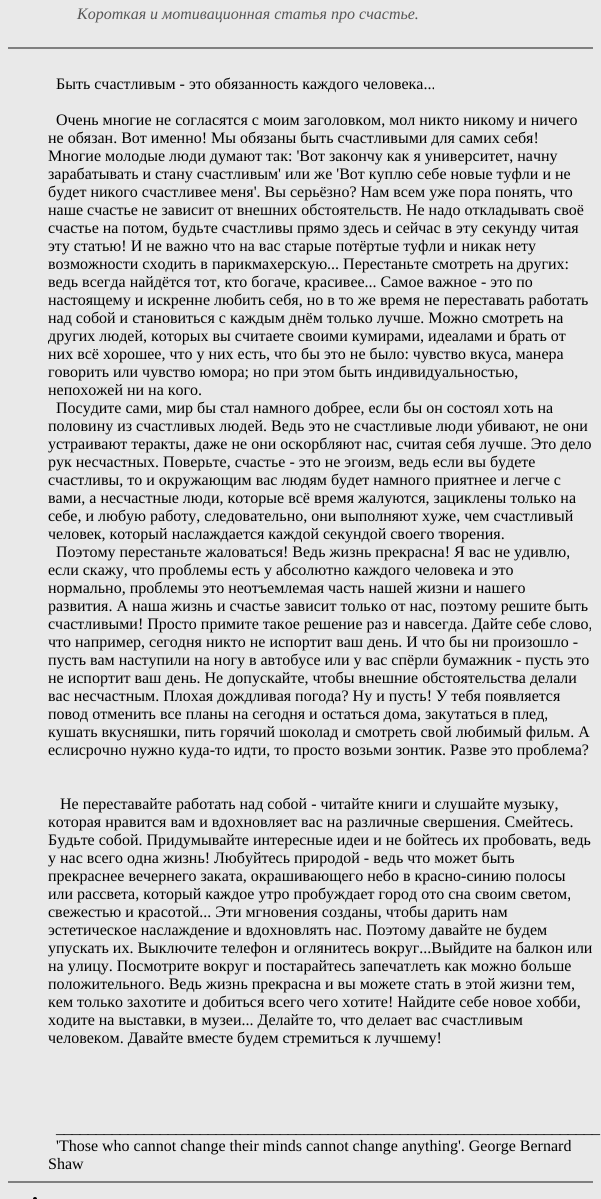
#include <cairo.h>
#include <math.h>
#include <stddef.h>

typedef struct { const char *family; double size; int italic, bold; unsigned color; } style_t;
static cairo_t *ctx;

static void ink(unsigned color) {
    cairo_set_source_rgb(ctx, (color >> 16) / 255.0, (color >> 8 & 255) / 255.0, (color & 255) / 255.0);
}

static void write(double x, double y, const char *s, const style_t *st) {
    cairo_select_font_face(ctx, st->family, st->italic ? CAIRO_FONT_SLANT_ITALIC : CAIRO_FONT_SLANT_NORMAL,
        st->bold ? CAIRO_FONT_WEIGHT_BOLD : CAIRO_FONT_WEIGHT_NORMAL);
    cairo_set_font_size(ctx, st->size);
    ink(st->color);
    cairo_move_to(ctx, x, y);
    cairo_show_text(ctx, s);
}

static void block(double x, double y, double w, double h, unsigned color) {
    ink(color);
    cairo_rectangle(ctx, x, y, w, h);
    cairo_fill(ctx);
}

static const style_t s1 = {"Liberation Serif", 16, 1, 0, 0x555555};
static const style_t s2 = {"Liberation Serif", 16, 0, 0, 0x000000};

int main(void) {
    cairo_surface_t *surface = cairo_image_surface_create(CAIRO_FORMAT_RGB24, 601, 1199);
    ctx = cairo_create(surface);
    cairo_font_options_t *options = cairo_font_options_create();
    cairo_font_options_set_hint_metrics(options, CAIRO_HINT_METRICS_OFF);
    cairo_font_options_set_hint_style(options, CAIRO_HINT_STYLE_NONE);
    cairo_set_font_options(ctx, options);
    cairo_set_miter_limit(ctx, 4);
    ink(0xe9e9e9);
    cairo_paint(ctx);
    write(77, 19, "Короткая и мотивационная статья про счастье.", &s1);
    block(8, 47, 585, 2, 0x808080);
    write(56, 89, "Быть счастливым - это обязанность каждого человека...", &s2);
    write(56, 125, "Очень многие не согласятся с моим заголовком, мол никто никому и ничего", &s2);
    write(48, 143, "не обязан. Вот именно! Мы обязаны быть счастливыми для самих себя!", &s2);
    write(48, 161, "Многие молодые люди думают так: 'Вот закончу как я университет, начну", &s2);
    write(48, 179, "зарабатывать и стану счастливым' или же 'Вот куплю себе новые туфли и не", &s2);
    write(48, 197, "будет никого счастливее меня'. Вы серьёзно? Нам всем уже пора понять, что", &s2);
    write(48, 215, "наше счастье не зависит от внешних обстоятельств. Не надо откладывать своё", &s2);
    write(48, 233, "счастье на потом, будьте счастливы прямо здесь и сейчас в эту секунду читая", &s2);
    write(48, 251, "эту статью! И не важно что на вас старые потёртые туфли и никак нету", &s2);
    write(48, 269, "возможности сходить в парикмахерскую... Перестаньте смотреть на других:", &s2);
    write(48, 287, "ведь всегда найдётся тот, кто богаче, красивее... Самое важное - это по", &s2);
    write(48, 305, "настоящему и искренне любить себя, но в то же время не переставать работать", &s2);
    write(48, 323, "над собой и становиться с каждым днём только лучше. Можно смотреть на", &s2);
    write(48, 341, "других людей, которых вы считаете своими кумирами, идеалами и брать от", &s2);
    write(48, 359, "них всё хорошее, что у них есть, что бы это не было: чувство вкуса, манера", &s2);
    write(48, 377, "говорить или чувство юмора; но при этом быть индивидуальностью,", &s2);
    write(48, 395, "непохожей ни на кого.", &s2);
    write(56, 413, "Посудите сами, мир бы стал намного добрее, если бы он состоял хоть на", &s2);
    write(48, 431, "половину из счастливых людей. Ведь это не счастливые люди убивают, не они", &s2);
    write(48, 449, "устраивают теракты, даже не они оскорбляют нас, считая себя лучше. Это дело", &s2);
    write(48, 467, "рук несчастных. Поверьте, счастье - это не эгоизм, ведь если вы будете", &s2);
    write(48, 485, "счастливы, то и окружающим вас людям будет намного приятнее и легче с", &s2);
    write(48, 503, "вами, а несчастные люди, которые всё время жалуются, зациклены только на", &s2);
    write(48, 521, "себе, и любую работу, следовательно, они выполняют хуже, чем счастливый", &s2);
    write(48, 539, "человек, который наслаждается каждой секундой своего творения.", &s2);
    write(56, 557, "Поэтому перестаньте жаловаться! Ведь жизнь прекрасна! Я вас не удивлю,", &s2);
    write(48, 575, "если скажу, что проблемы есть у абсолютно каждого человека и это", &s2);
    write(48, 593, "нормально, проблемы это неотъемлемая часть нашей жизни и нашего", &s2);
    write(48, 611, "развития. А наша жизнь и счастье зависит только от нас, поэтому решите быть", &s2);
    write(48, 629, "счастливыми! Просто примите такое решение раз и навсегда. Дайте себе слово,", &s2);
    write(48, 647, "что например, сегодня никто не испортит ваш день. И что бы ни произошло -", &s2);
    write(48, 665, "пусть вам наступили на ногу в автобусе или у вас спёрли бумажник - пусть это", &s2);
    write(48, 683, "не испортит ваш день. Не допускайте, чтобы внешние обстоятельства делали", &s2);
    write(48, 701, "вас несчастным. Плохая дождливая погода? Ну и пусть! У тебя появляется", &s2);
    write(48, 719, "повод отменить все планы на сегодня и остаться дома, закутаться в плед,", &s2);
    write(48, 737, "кушать вкусняшки, пить горячий шоколад и смотреть свой любимый фильм. А", &s2);
    write(48, 755, "еслисрочно нужно куда-то идти, то просто возьми зонтик. Разве это проблема?", &s2);
    write(60, 809, "Не переставайте работать над собой - читайте книги и слушайте музыку,", &s2);
    write(48, 827, "которая нравится вам и вдохновляет вас на различные свершения. Смейтесь.", &s2);
    write(48, 845, "Будьте собой. Придумывайте интересные идеи и не бойтесь их пробовать, ведь", &s2);
    write(48, 863, "у нас всего одна жизнь! Любуйтесь природой - ведь что может быть", &s2);
    write(48, 881, "прекраснее вечернего заката, окрашивающего небо в красно-синию полосы", &s2);
    write(48, 899, "или рассвета, который каждое утро пробуждает город ото сна своим светом,", &s2);
    write(48, 917, "свежестью и красотой... Эти мгновения созданы, чтобы дарить нам", &s2);
    write(48, 935, "эстетическое наслаждение и вдохновлять нас. Поэтому давайте не будем", &s2);
    write(48, 953, "упускать их. Выключите телефон и оглянитесь вокруг...Выйдите на балкон или", &s2);
    write(48, 971, "на улицу. Посмотрите вокруг и постарайтесь запечатлеть как можно больше", &s2);
    write(48, 989, "положительного. Ведь жизнь прекрасна и вы можете стать в этой жизни тем,", &s2);
    write(48, 1007, "кем только захотите и добиться всего чего хотите! Найдите себе новое хобби,", &s2);
    write(48, 1025, "ходите на выставки, в музеи... Делайте то, что делает вас счастливым", &s2);
    write(48, 1043, "человеком. Давайте вместе будем стремиться к лучшему!", &s2);
    write(56, 1133, "____________________________________________________________________", &s2);
    write(56, 1151, "'Those who cannot change their minds cannot change anything'. George Bernard", &s2);
    write(48, 1169, "Shaw", &s2);
    block(8, 1181, 585, 2, 0x808080);
    ink(0x000000);
    cairo_new_path(ctx);
    cairo_arc(ctx, 35, 1199, 2, 0, 2 * M_PI);
    cairo_fill(ctx);
    cairo_surface_write_to_png(surface, "screenshot.png");
    cairo_font_options_destroy(options);
    cairo_destroy(ctx);
    cairo_surface_destroy(surface);
    return 0;
}
